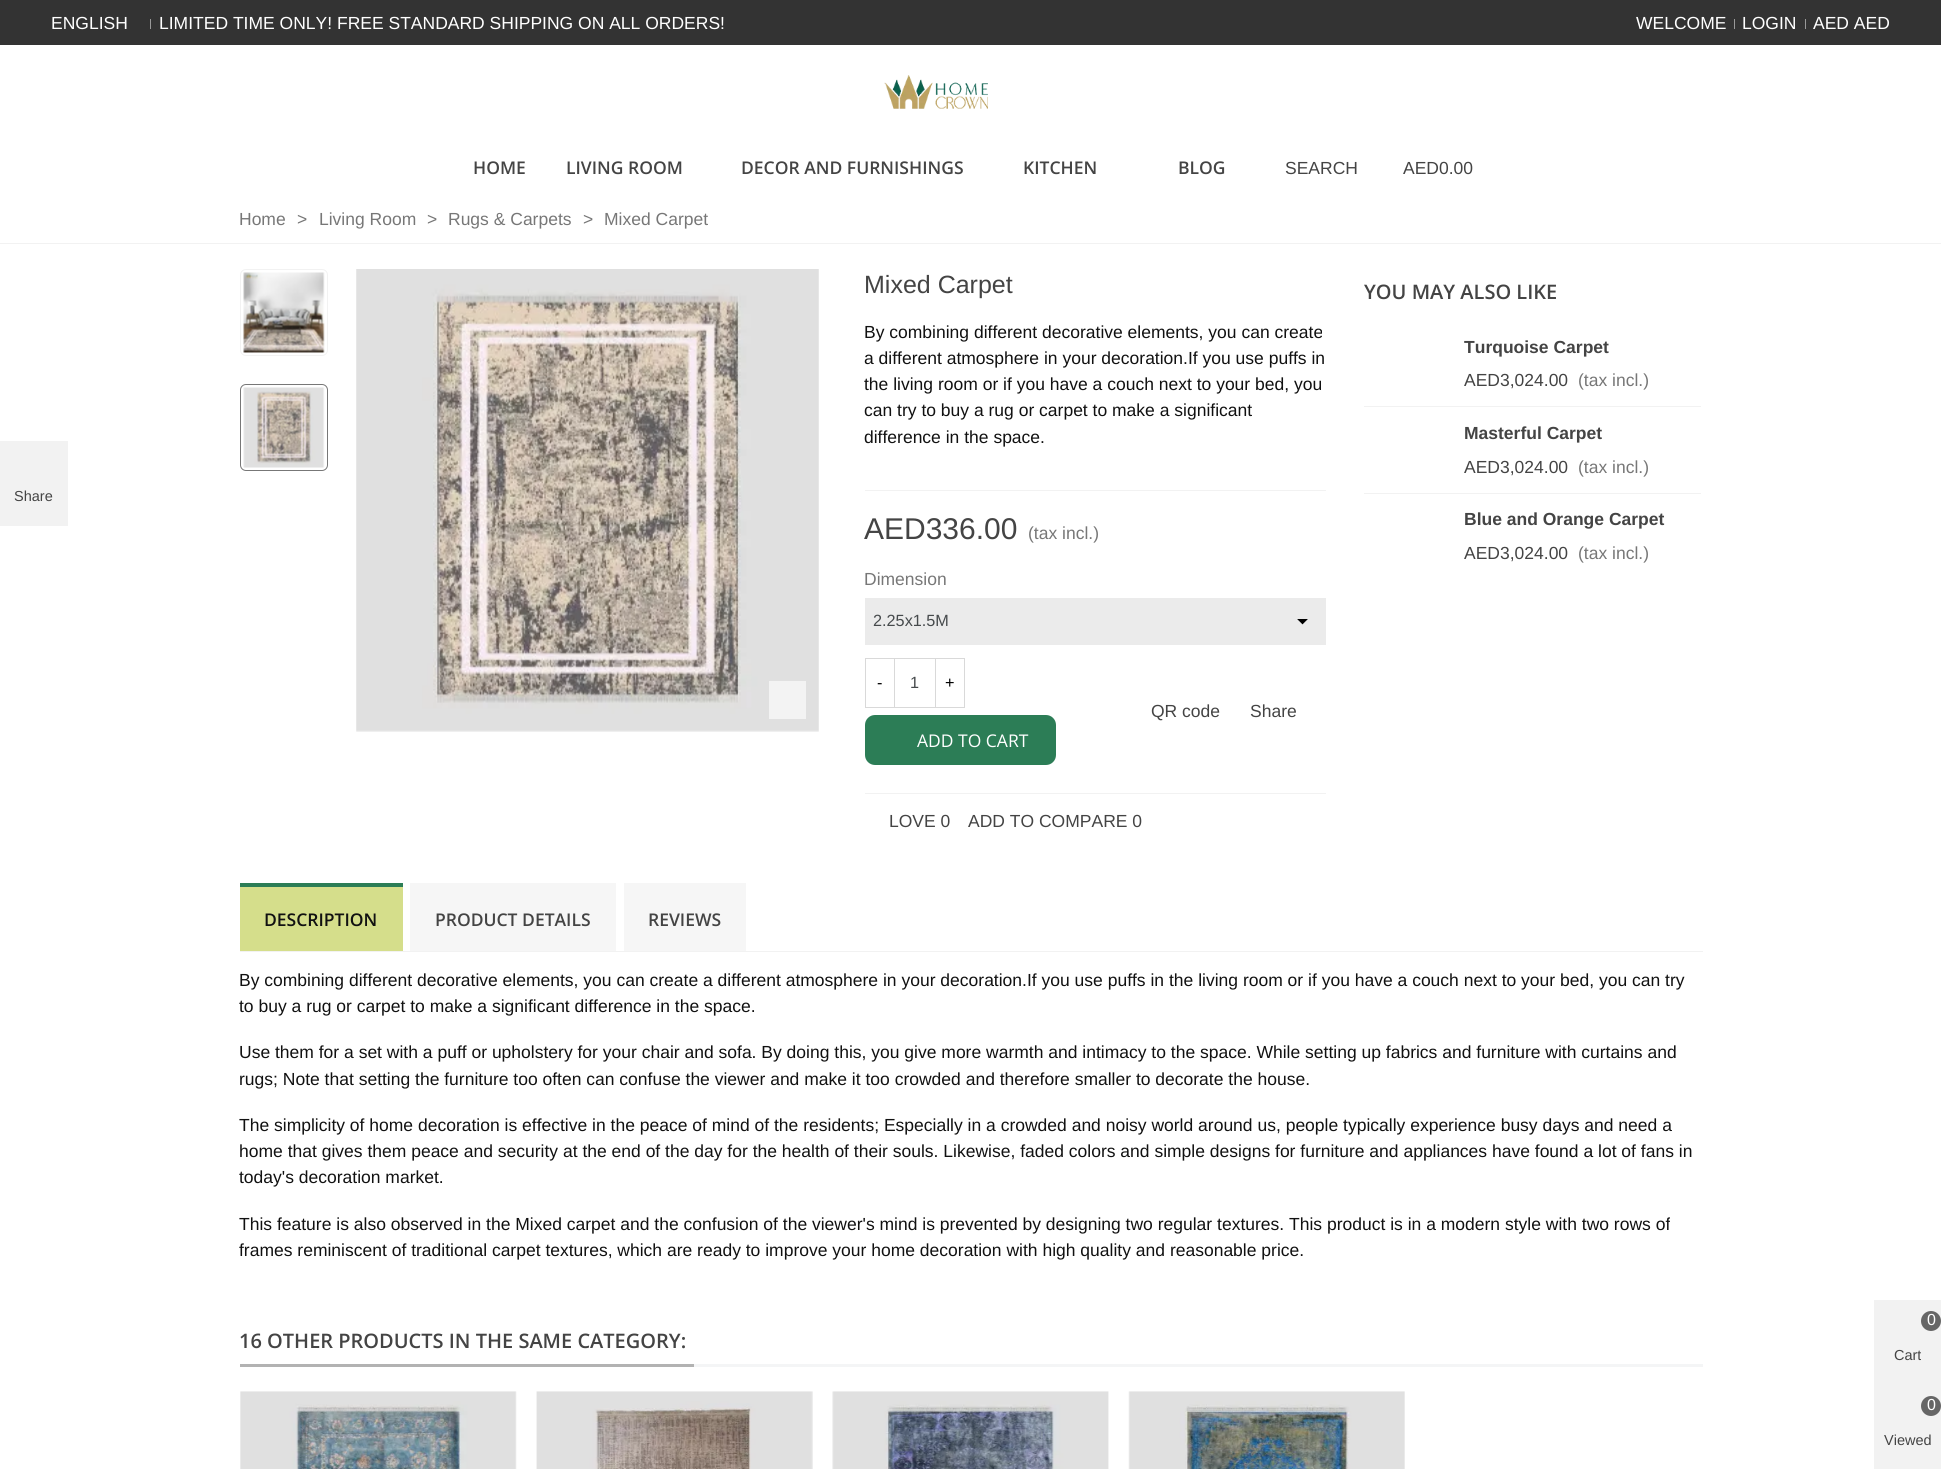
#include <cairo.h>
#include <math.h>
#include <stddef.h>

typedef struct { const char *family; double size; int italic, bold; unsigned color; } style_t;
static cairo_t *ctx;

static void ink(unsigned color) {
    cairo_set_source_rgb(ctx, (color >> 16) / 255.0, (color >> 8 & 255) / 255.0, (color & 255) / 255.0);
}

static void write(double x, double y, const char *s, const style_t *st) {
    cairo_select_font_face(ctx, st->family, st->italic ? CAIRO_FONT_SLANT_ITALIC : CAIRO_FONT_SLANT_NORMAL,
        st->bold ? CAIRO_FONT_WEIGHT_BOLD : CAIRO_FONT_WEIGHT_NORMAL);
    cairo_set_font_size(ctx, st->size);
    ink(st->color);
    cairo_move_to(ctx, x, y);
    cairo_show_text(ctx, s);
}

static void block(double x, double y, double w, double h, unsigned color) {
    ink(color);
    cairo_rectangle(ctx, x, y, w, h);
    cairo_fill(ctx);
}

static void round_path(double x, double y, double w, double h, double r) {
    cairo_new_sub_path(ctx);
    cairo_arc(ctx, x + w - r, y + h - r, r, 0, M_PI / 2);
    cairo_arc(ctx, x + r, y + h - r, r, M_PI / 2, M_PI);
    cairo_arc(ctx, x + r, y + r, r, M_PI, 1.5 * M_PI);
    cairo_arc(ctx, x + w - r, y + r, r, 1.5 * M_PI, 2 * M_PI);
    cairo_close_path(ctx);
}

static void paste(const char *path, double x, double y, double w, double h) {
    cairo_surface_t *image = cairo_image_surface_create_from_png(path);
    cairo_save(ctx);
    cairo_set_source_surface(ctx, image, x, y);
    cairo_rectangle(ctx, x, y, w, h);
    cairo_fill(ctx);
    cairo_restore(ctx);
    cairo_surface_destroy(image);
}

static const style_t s1 = {"Liberation Sans", 17.5, 0, 0, 0xffffff};
static const style_t s2 = {"Open Sans SemiBold", 17.5, 0, 0, 0x444444};
static const style_t s3 = {"Liberation Sans", 17.5, 0, 0, 0x444444};
static const style_t s4 = {"Liberation Sans", 17.5, 0, 0, 0x777777};
static const style_t s5 = {"Liberation Sans", 25, 0, 0, 0x444444};
static const style_t s6 = {"Liberation Sans", 17.5, 0, 0, 0x111111};
static const style_t s7 = {"Liberation Sans", 30, 0, 0, 0x444444};
static const style_t s8 = {"Liberation Sans", 16.25, 0, 0, 0x464a4c};
static const style_t s9 = {"Liberation Sans", 16.25, 0, 0, 0x000000};
static const style_t s10 = {"Open Sans", 17.5, 0, 0, 0xffffff};
static const style_t s11 = {"Open Sans SemiBold", 20, 0, 0, 0x444444};
static const style_t s12 = {"Liberation Sans", 17.5, 0, 1, 0x444444};
static const style_t s13 = {"Open Sans SemiBold", 17.5, 0, 0, 0x111111};
static const style_t s14 = {"Liberation Sans", 14.5, 0, 0, 0x444444};
static const style_t s15 = {"Liberation Sans", 16, 0, 0, 0xffffff};

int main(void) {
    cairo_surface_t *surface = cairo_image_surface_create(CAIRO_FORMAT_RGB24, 1941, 1469);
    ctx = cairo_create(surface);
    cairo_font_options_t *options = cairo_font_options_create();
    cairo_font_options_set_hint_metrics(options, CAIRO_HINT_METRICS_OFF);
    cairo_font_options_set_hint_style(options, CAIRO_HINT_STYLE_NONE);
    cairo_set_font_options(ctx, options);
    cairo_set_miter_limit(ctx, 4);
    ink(0xffffff);
    cairo_paint(ctx);
    block(0, 0, 1941, 45, 0x333333);
    write(51, 29, "ENGLISH", &s1);
    block(150, 19, 1, 10, 0x999999);
    write(159, 29, "LIMITED TIME ONLY! FREE STANDARD SHIPPING ON ALL ORDERS!", &s1);
    write(1636, 29, "WELCOME", &s1);
    block(1734, 19, 1, 10, 0x999999);
    write(1742, 29, "LOGIN", &s1);
    block(1805, 19, 1, 10, 0x999999);
    write(1813, 29, "AED AED", &s1);
    paste("pic1.png", 884, 75, 104, 34);
    write(473, 174, "HOME", &s2);
    write(566, 174, "LIVING ROOM", &s2);
    write(741, 174, "DECOR AND FURNISHINGS", &s2);
    write(1023, 174, "KITCHEN", &s2);
    write(1178, 174, "BLOG", &s2);
    write(1285, 174, "SEARCH", &s3);
    write(1403, 174, "AED0.00", &s3);
    block(0, 243, 1941, 1, 0xf2f2f2);
    write(239, 225, "Home", &s4);
    write(297, 225, ">", &s4);
    write(319, 225, "Living Room", &s4);
    write(427, 225, ">", &s4);
    write(448, 225, "Rugs & Carpets", &s4);
    write(583, 225, ">", &s4);
    write(604, 225, "Mixed Carpet", &s4);
    round_path(240.5, 269.5, 87, 86, 5.5);
    ink(0xf2f2f2);
    cairo_set_line_width(ctx, 1);
    cairo_stroke(ctx);
    paste("pic2.png", 243, 272, 82, 81);
    round_path(240.5, 384.5, 87, 86, 5.5);
    ink(0x777777);
    cairo_stroke(ctx);
    paste("pic3.png", 243, 387, 82, 81);
    paste("pic4.png", 356, 269, 463, 463);
    block(769, 681, 37, 38, 0xf3f3f3);
    write(864, 293, "Mixed Carpet", &s5);
    write(864, 338, "By combining different decorative elements, you can create", &s6);
    write(864, 364, "a different atmosphere in your decoration.If you use puffs in", &s6);
    write(864, 390, "the living room or if you have a couch next to your bed, you", &s6);
    write(864, 416, "can try to buy a rug or carpet to make a significant", &s6);
    write(864, 443, "difference in the space.", &s6);
    block(865, 490, 461, 1, 0xf2f2f2);
    write(864, 539, "AED336.00", &s7);
    write(1028, 539, "(tax incl.)", &s4);
    write(864, 585, "Dimension", &s4);
    block(865, 598, 461, 47, 0xebebeb);
    paste("pic5.png", 1297, 619, 11, 6);
    write(873, 626, "2.25x1.5M", &s8);
    cairo_rectangle(ctx, 865.5, 658.5, 29, 49);
    ink(0xd9d9d9);
    cairo_stroke(ctx);
    write(877, 688, "-", &s9);
    cairo_rectangle(ctx, 894.5, 658.5, 41, 49);
    ink(0xd9d9d9);
    cairo_stroke(ctx);
    write(910, 688, "1", &s8);
    cairo_rectangle(ctx, 935.5, 658.5, 29, 49);
    ink(0xd9d9d9);
    cairo_stroke(ctx);
    write(945, 688, "+", &s9);
    ink(0x2c7d56);
    round_path(865, 715, 191, 50, 10);
    cairo_fill(ctx);
    write(917, 747, "ADD TO CART", &s10);
    write(1151, 717, "QR code", &s3);
    write(1250, 717, "Share", &s3);
    block(865, 793, 461, 1, 0xf2f2f2);
    write(889, 827, "LOVE 0", &s3);
    write(968, 827, "ADD TO COMPARE 0", &s3);
    write(1364, 299, "YOU MAY ALSO LIKE", &s11);
    block(1364, 406, 337, 1, 0xf2f2f2);
    write(1464, 353, "Turquoise Carpet", &s12);
    write(1464, 386, "AED3,024.00", &s3);
    write(1578, 386, "(tax incl.)", &s4);
    block(1364, 493, 337, 1, 0xf2f2f2);
    write(1464, 439, "Masterful Carpet", &s12);
    write(1464, 473, "AED3,024.00", &s3);
    write(1578, 473, "(tax incl.)", &s4);
    write(1464, 525, "Blue and Orange Carpet", &s12);
    write(1464, 559, "AED3,024.00", &s3);
    write(1578, 559, "(tax incl.)", &s4);
    block(240, 951, 1463, 1, 0xf2f2f2);
    block(240, 887, 163, 64, 0xd5de8b);
    block(240, 883, 163, 4, 0x2c7d56);
    write(264, 926, "DESCRIPTION", &s13);
    block(410, 883, 206, 68, 0xf6f6f6);
    write(435, 926, "PRODUCT DETAILS", &s2);
    block(624, 883, 122, 68, 0xf6f6f6);
    write(648, 926, "REVIEWS", &s2);
    write(239, 986, "By combining different decorative elements, you can create a different atmosphere in your decoration.If you use puffs in the living room or if you have a couch next to your bed, you can try", &s6);
    write(239, 1012, "to buy a rug or carpet to make a significant difference in the space.", &s6);
    write(239, 1058, "Use them for a set with a puff or upholstery for your chair and sofa. By doing this, you give more warmth and intimacy to the space. While setting up fabrics and furniture with curtains and", &s6);
    write(239, 1085, "rugs; Note that setting the furniture too often can confuse the viewer and make it too crowded and therefore smaller to decorate the house.", &s6);
    write(239, 1131, "The simplicity of home decoration is effective in the peace of mind of the residents; Especially in a crowded and noisy world around us, people typically experience busy days and need a", &s6);
    write(239, 1157, "home that gives them peace and security at the end of the day for the health of their souls. Likewise, faded colors and simple designs for furniture and appliances have found a lot of fans in", &s6);
    write(239, 1183, "today's decoration market.", &s6);
    write(239, 1230, "This feature is also observed in the Mixed carpet and the confusion of the viewer's mind is prevented by designing two regular textures. This product is in a modern style with two rows of", &s6);
    write(239, 1256, "frames reminiscent of traditional carpet textures, which are ready to improve your home decoration with high quality and reasonable price.", &s6);
    block(694, 1364, 1009, 3, 0xf4f5f6);
    block(240, 1364, 454, 3, 0xb2b2b2);
    write(239, 1348, "16 OTHER PRODUCTS IN THE SAME CATEGORY:", &s11);
    paste("pic6.png", 240, 1391, 277, 78);
    paste("pic7.png", 536, 1391, 277, 78);
    paste("pic8.png", 832, 1391, 277, 78);
    paste("pic9.png", 1128, 1391, 277, 78);
    block(0, 441, 68, 85, 0xf2f2f2);
    write(14, 501, "Share", &s14);
    block(1874, 1300, 67, 169, 0xf2f2f2);
    ink(0x666666);
    cairo_new_path(ctx);
    cairo_arc(ctx, 1931, 1321, 10, 0, 2 * M_PI);
    cairo_fill(ctx);
    write(1927, 1325, "0", &s15);
    write(1894, 1360, "Cart", &s14);
    ink(0x666666);
    cairo_new_path(ctx);
    cairo_arc(ctx, 1931, 1406, 10, 0, 2 * M_PI);
    cairo_fill(ctx);
    write(1927, 1410, "0", &s15);
    write(1884, 1445, "Viewed", &s14);
    cairo_surface_write_to_png(surface, "screenshot.png");
    cairo_font_options_destroy(options);
    cairo_destroy(ctx);
    cairo_surface_destroy(surface);
    return 0;
}
